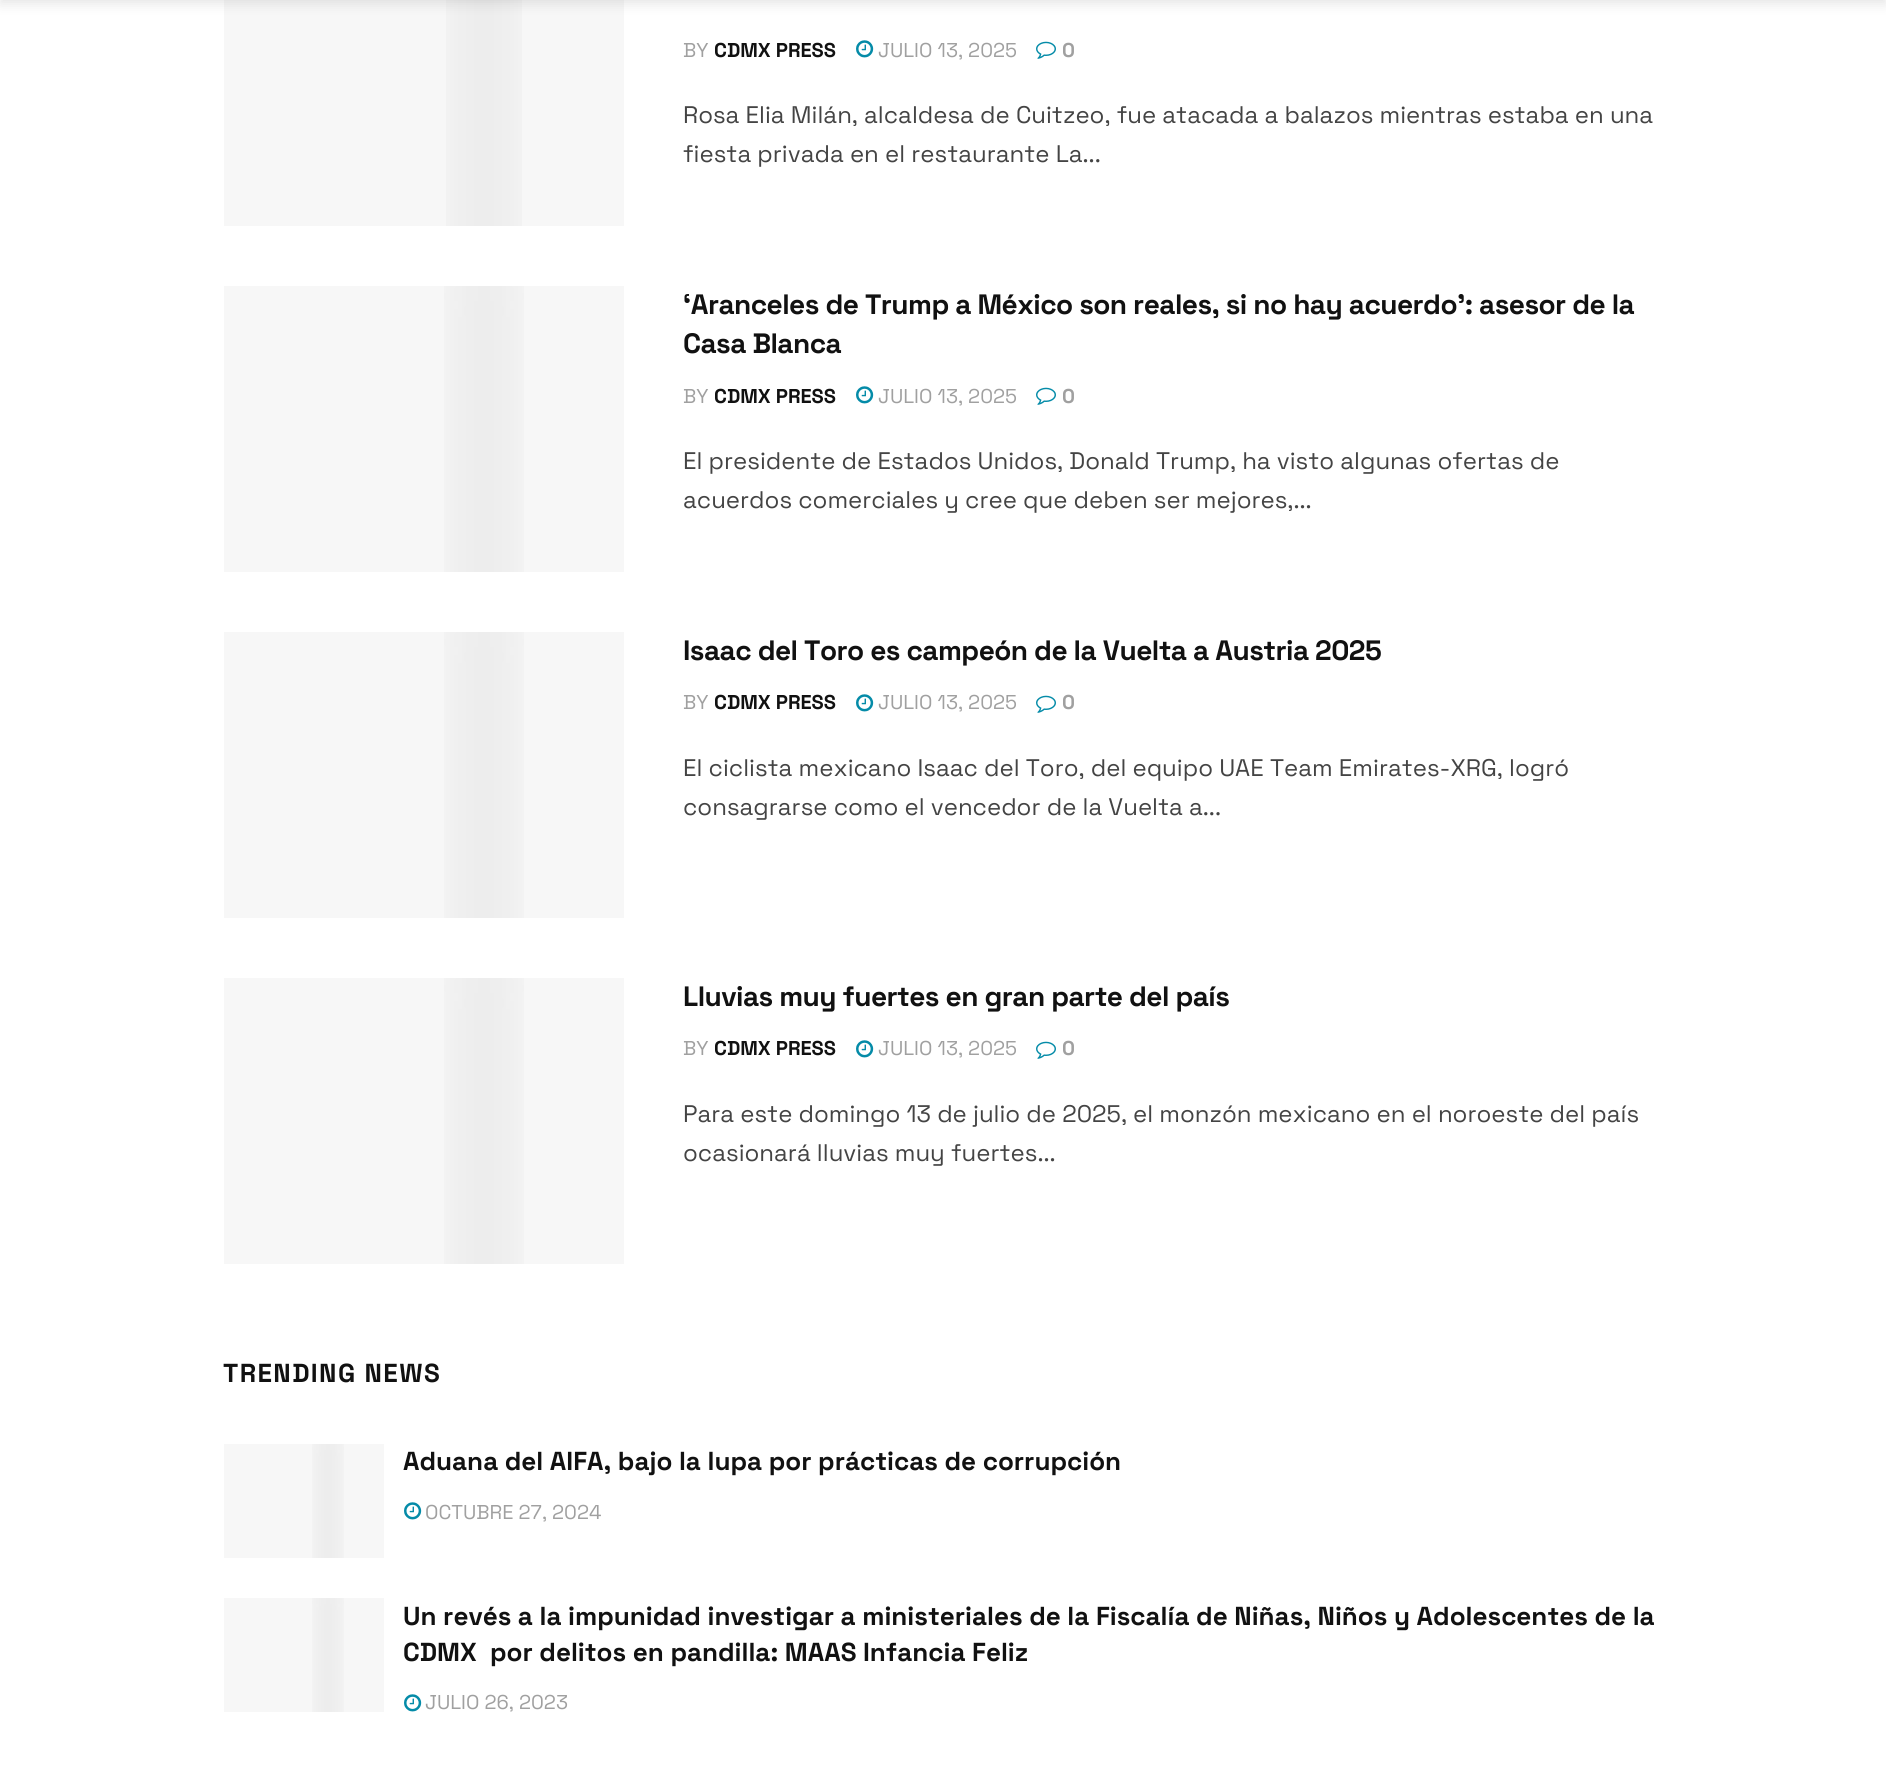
#include <cairo.h>
#include <math.h>
#include <stddef.h>

typedef struct { const char *family; double size; int italic, bold; unsigned color; } style_t;
static cairo_t *ctx;

static void ink(unsigned color) {
    cairo_set_source_rgb(ctx, (color >> 16) / 255.0, (color >> 8 & 255) / 255.0, (color & 255) / 255.0);
}

static void write(double x, double y, const char *s, const style_t *st) {
    cairo_select_font_face(ctx, st->family, st->italic ? CAIRO_FONT_SLANT_ITALIC : CAIRO_FONT_SLANT_NORMAL,
        st->bold ? CAIRO_FONT_WEIGHT_BOLD : CAIRO_FONT_WEIGHT_NORMAL);
    cairo_set_font_size(ctx, st->size);
    ink(st->color);
    cairo_move_to(ctx, x, y);
    cairo_show_text(ctx, s);
}

static void write_spaced(double x, double y, const char *s, double letter, double word) {
    cairo_move_to(ctx, x, y);
    while (*s) {
        char ch[5] = {0};
        int n = 0;
        do ch[n++] = *s++; while ((*s & 0xC0) == 0x80);
        cairo_show_text(ctx, ch);
        cairo_rel_move_to(ctx, letter + word * (*ch == ' '), 0);
    }
}

static void block(double x, double y, double w, double h, unsigned color) {
    ink(color);
    cairo_rectangle(ctx, x, y, w, h);
    cairo_fill(ctx);
}

static void round_path(double x, double y, double w, double h, double r) {
    cairo_new_sub_path(ctx);
    cairo_arc(ctx, x + w - r, y + h - r, r, 0, M_PI / 2);
    cairo_arc(ctx, x + r, y + h - r, r, M_PI / 2, M_PI);
    cairo_arc(ctx, x + r, y + r, r, M_PI, 1.5 * M_PI);
    cairo_arc(ctx, x + w - r, y + r, r, 1.5 * M_PI, 2 * M_PI);
    cairo_close_path(ctx);
}

static void blur_box(double x, double y, double w, double h, double r, double blur, double alpha) {
    cairo_push_group_with_content(ctx, CAIRO_CONTENT_ALPHA);
    cairo_set_operator(ctx, CAIRO_OPERATOR_SOURCE);
    for (int i = 15; i >= -15 && fmin(w, h) + blur * i / 3 > 0; i -= 2) {
        double e = blur * i / 6;
        cairo_set_source_rgba(ctx, 0, 0, 0, alpha * erfc((i - 1) / 8.5) / 2);
        round_path(x - e, y - e, w + 2 * e, h + 2 * e, fmax(0, fmin(r + e + blur * .6, fmin(w, h) / 2 + e)));
        cairo_fill(ctx);
    }
    cairo_pattern_t *soft = cairo_pop_group(ctx);
    cairo_mask(ctx, soft);
    cairo_pattern_destroy(soft);
}

static void paste(const char *path, double x, double y, double w, double h) {
    cairo_surface_t *image = cairo_image_surface_create_from_png(path);
    cairo_save(ctx);
    cairo_set_source_surface(ctx, image, x, y);
    cairo_rectangle(ctx, x, y, w, h);
    cairo_fill(ctx);
    cairo_restore(ctx);
    cairo_surface_destroy(image);
}

static const style_t s1 = {"Space Grotesk", 20, 0, 0, 0xa0a0a0};
static const style_t s2 = {"Space Grotesk", 20, 0, 1, 0x111111};
static const style_t s3 = {"Space Grotesk", 20, 0, 1, 0xa0a0a0};
static const style_t s4 = {"Space Grotesk", 24, 0, 0, 0x444444};
static const style_t s5 = {"Space Grotesk", 26, 0, 1, 0x111111};

int main(void) {
    cairo_surface_t *surface = cairo_image_surface_create(CAIRO_FORMAT_RGB24, 1886, 1765);
    ctx = cairo_create(surface);
    cairo_font_options_t *options = cairo_font_options_create();
    cairo_font_options_set_hint_metrics(options, CAIRO_HINT_METRICS_OFF);
    cairo_font_options_set_hint_style(options, CAIRO_HINT_STYLE_NONE);
    cairo_set_font_options(ctx, options);
    cairo_set_miter_limit(ctx, 4);
    ink(0xffffff);
    cairo_paint(ctx);
    block(224, 0, 400, 226, 0xf7f7f7);
    paste("pic1.png", 446, 0, 76, 226);
    ink(0x000000);
    blur_box(0, -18, 1886, 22, 0, 6, 0.1);
    write(683, 57, "BY", &s1);
    write(714, 57, "CDMX PRESS", &s2);
    paste("pic2.png", 856, 40, 18, 18);
    write(878, 57, "JULIO 13, 2025", &s1);
    paste("pic3.png", 1036, 41, 20, 18);
    write(1062, 57, "0", &s3);
    write(683, 123, "Rosa Elia Milán, alcaldesa de Cuitzeo, fue atacada a balazos mientras estaba en una", &s4);
    write(683, 162, "fiesta privada en el restaurante La...", &s4);
    block(224, 286, 400, 286, 0xf7f7f7);
    paste("pic4.png", 444, 286, 80, 286);
    cairo_select_font_face(ctx, "Space Grotesk", CAIRO_FONT_SLANT_NORMAL, CAIRO_FONT_WEIGHT_BOLD);
    cairo_set_font_size(ctx, 28);
    ink(0x111111);
    write_spaced(683, 314, "‘Aranceles de Trump a México son reales, si no hay acuerdo’: asesor de la", -0.55, 0);
    write_spaced(683, 353, "Casa Blanca", -0.55, 0);
    write(683, 403, "BY", &s1);
    write(714, 403, "CDMX PRESS", &s2);
    paste("pic2.png", 856, 386, 18, 18);
    write(878, 403, "JULIO 13, 2025", &s1);
    paste("pic3.png", 1036, 387, 20, 18);
    write(1062, 403, "0", &s3);
    write(683, 469, "El presidente de Estados Unidos, Donald Trump, ha visto algunas ofertas de", &s4);
    write(683, 508, "acuerdos comerciales y cree que deben ser mejores,...", &s4);
    block(224, 632, 400, 286, 0xf7f7f7);
    paste("pic4.png", 444, 632, 80, 286);
    cairo_select_font_face(ctx, "Space Grotesk", CAIRO_FONT_SLANT_NORMAL, CAIRO_FONT_WEIGHT_BOLD);
    cairo_set_font_size(ctx, 28);
    ink(0x111111);
    write_spaced(683, 660, "Isaac del Toro es campeón de la Vuelta a Austria 2025", -0.55, 0);
    write(683, 709, "BY", &s1);
    write(714, 709, "CDMX PRESS", &s2);
    paste("pic2.png", 856, 694, 18, 18);
    write(878, 709, "JULIO 13, 2025", &s1);
    paste("pic3.png", 1036, 695, 20, 18);
    write(1062, 709, "0", &s3);
    write(683, 776, "El ciclista mexicano Isaac del Toro, del equipo UAE Team Emirates-XRG, logró", &s4);
    write(683, 815, "consagrarse como el vencedor de la Vuelta a...", &s4);
    block(224, 978, 400, 286, 0xf7f7f7);
    paste("pic4.png", 444, 978, 80, 286);
    cairo_select_font_face(ctx, "Space Grotesk", CAIRO_FONT_SLANT_NORMAL, CAIRO_FONT_WEIGHT_BOLD);
    cairo_set_font_size(ctx, 28);
    ink(0x111111);
    write_spaced(683, 1006, "Lluvias muy fuertes en gran parte del país", -0.55, 0);
    write(683, 1055, "BY", &s1);
    write(714, 1055, "CDMX PRESS", &s2);
    paste("pic2.png", 856, 1040, 18, 18);
    write(878, 1055, "JULIO 13, 2025", &s1);
    paste("pic3.png", 1036, 1041, 20, 18);
    write(1062, 1055, "0", &s3);
    write(683, 1122, "Para este domingo 13 de julio de 2025, el monzón mexicano en el noroeste del país", &s4);
    write(683, 1161, "ocasionará lluvias muy fuertes...", &s4);
    cairo_select_font_face(ctx, "Space Grotesk", CAIRO_FONT_SLANT_NORMAL, CAIRO_FONT_WEIGHT_BOLD);
    cairo_set_font_size(ctx, 26);
    ink(0x111111);
    write_spaced(223, 1382, "TRENDING NEWS", 1.4, 0);
    block(224, 1444, 160, 114, 0xf7f7f7);
    paste("pic5.png", 312, 1444, 32, 114);
    write(403, 1470, "Aduana del AIFA, bajo la lupa por prácticas de corrupción", &s5);
    paste("pic2.png", 404, 1502, 18, 18);
    write(425, 1519, "OCTUBRE 27, 2024", &s1);
    block(224, 1598, 160, 114, 0xf7f7f7);
    paste("pic5.png", 312, 1598, 32, 114);
    write(403, 1625, "Un revés a la impunidad investigar a ministeriales de la Fiscalía de Niñas, Niños y Adolescentes de la", &s5);
    write(403, 1661, "CDMX  por delitos en pandilla: MAAS Infancia Feliz", &s5);
    paste("pic2.png", 404, 1694, 18, 18);
    write(425, 1709, "JULIO 26, 2023", &s1);
    cairo_surface_write_to_png(surface, "screenshot.png");
    cairo_font_options_destroy(options);
    cairo_destroy(ctx);
    cairo_surface_destroy(surface);
    return 0;
}
